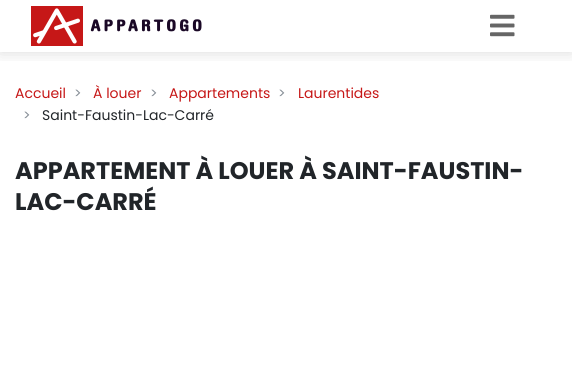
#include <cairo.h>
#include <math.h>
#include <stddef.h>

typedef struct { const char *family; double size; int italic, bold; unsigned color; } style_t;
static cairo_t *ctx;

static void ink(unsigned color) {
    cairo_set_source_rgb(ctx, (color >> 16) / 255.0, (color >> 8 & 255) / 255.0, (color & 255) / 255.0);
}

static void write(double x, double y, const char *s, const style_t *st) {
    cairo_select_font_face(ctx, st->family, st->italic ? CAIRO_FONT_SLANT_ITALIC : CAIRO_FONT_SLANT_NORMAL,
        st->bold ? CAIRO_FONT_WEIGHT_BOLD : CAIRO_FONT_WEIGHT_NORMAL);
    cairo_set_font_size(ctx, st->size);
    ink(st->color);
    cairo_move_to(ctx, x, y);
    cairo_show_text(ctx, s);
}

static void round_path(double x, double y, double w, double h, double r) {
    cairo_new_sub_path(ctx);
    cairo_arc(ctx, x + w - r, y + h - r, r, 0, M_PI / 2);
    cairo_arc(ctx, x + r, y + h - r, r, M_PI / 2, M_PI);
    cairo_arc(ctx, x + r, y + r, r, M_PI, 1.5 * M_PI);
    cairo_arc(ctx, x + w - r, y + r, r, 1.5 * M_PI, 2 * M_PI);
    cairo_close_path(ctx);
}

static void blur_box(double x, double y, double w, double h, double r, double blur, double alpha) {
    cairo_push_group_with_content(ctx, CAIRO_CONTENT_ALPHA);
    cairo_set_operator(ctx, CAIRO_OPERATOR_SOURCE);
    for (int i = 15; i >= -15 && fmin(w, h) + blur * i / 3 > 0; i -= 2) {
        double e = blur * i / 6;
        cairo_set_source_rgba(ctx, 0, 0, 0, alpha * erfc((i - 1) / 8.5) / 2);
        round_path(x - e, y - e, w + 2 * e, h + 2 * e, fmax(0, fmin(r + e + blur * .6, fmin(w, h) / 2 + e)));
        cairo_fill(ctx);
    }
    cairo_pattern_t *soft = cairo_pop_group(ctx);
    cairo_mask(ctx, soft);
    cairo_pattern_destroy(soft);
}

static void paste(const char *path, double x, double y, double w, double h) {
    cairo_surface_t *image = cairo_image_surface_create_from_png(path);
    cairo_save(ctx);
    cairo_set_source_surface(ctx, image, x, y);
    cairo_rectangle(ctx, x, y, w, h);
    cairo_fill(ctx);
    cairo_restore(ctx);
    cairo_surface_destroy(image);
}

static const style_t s1 = {"Poppins", 14, 0, 0, 0xc61717};
static const style_t s2 = {"Poppins", 14, 0, 0, 0x868e96};
static const style_t s3 = {"Poppins", 14, 0, 0, 0x212529};
static const style_t s4 = {"Poppins", 24, 0, 1, 0x212529};

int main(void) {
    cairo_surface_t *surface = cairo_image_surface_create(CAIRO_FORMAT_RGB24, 572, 389);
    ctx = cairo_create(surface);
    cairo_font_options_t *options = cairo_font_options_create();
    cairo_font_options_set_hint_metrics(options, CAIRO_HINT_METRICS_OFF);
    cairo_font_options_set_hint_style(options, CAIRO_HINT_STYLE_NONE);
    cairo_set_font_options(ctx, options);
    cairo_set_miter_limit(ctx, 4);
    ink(0xffffff);
    cairo_paint(ctx);
    cairo_save(ctx);
    cairo_rectangle(ctx, 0, 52, 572, 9);
    cairo_clip(ctx);
    ink(0x000000);
    blur_box(0, 0, 572, 52, 0, 8, 0.15);
    cairo_restore(ctx);
    paste("pic1.png", 31, 6, 171, 40);
    paste("pic2.png", 490, 14, 25, 23);
    write(15, 98, "Accueil", &s1);
    write(74, 98, ">", &s2);
    write(93, 98, "À louer", &s1);
    write(150, 98, ">", &s2);
    write(169, 98, "Appartements", &s1);
    write(278, 98, ">", &s2);
    write(298, 98, "Laurentides", &s1);
    write(23, 120, ">", &s2);
    write(42, 120, "Saint-Faustin-Lac-Carré", &s3);
    write(15, 179, "APPARTEMENT À LOUER À SAINT-FAUSTIN-", &s4);
    write(15, 210, "LAC-CARRÉ", &s4);
    cairo_surface_write_to_png(surface, "screenshot.png");
    cairo_font_options_destroy(options);
    cairo_destroy(ctx);
    cairo_surface_destroy(surface);
    return 0;
}
